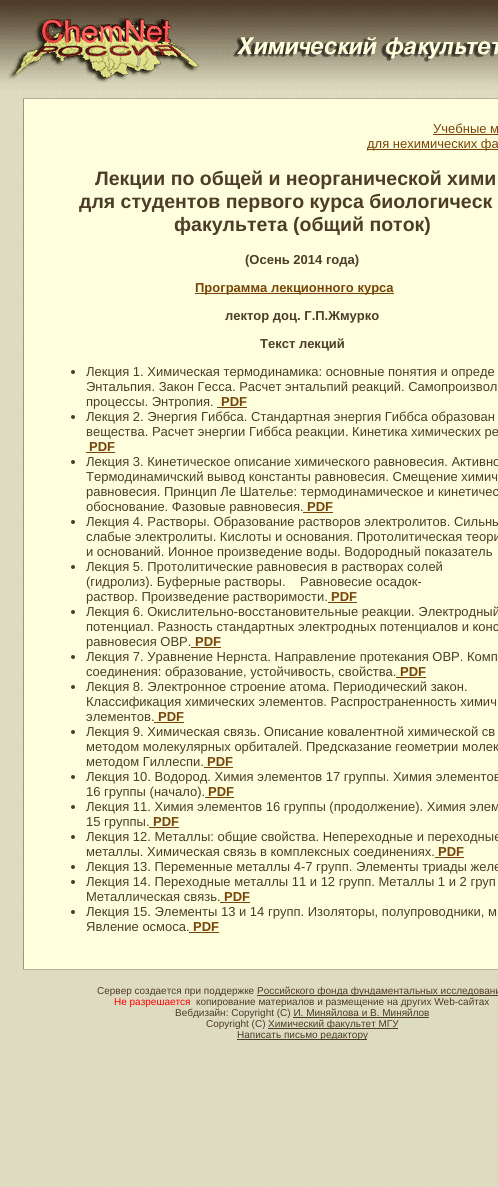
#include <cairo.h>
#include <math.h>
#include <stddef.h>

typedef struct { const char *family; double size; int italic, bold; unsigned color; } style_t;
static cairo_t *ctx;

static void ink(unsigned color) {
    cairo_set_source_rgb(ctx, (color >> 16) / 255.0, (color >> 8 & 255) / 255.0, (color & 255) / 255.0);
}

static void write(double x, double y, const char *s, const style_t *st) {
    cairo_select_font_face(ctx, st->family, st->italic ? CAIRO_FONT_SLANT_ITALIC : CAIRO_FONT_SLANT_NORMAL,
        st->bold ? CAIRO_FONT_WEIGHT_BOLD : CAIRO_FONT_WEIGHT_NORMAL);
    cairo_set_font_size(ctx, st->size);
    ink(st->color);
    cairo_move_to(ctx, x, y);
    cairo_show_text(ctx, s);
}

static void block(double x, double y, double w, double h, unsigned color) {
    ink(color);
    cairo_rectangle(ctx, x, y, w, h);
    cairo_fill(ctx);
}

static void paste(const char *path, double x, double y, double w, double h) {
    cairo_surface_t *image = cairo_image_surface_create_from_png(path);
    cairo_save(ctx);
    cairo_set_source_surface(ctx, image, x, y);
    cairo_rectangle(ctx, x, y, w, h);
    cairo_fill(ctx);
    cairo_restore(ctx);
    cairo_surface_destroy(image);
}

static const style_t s1 = {"Liberation Sans", 13, 0, 0, 0x764407};
static const style_t s2 = {"Liberation Sans", 19.5, 0, 1, 0x4c3c28};
static const style_t s3 = {"Liberation Sans", 13, 0, 1, 0x4c3c28};
static const style_t s4 = {"Liberation Sans", 13, 0, 1, 0x764407};
static const style_t s5 = {"Liberation Sans", 13, 0, 0, 0x4c3c28};
static const style_t s6 = {"Liberation Sans", 10, 0, 0, 0x4c3c28};
static const style_t s7 = {"Liberation Sans", 10, 0, 0, 0xff0000};

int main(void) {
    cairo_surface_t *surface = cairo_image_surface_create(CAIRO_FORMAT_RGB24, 498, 1187);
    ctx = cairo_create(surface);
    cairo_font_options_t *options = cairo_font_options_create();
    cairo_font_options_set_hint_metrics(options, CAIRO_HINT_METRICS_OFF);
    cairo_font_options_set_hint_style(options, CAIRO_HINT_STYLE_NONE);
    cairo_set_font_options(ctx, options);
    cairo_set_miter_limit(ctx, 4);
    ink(0xffffff);
    cairo_paint(ctx);
    paste("pic1.png", 0, 0, 498, 1187);
    paste("pic2.png", 8, 18, 191, 65);
    paste("pic3.png", 233, 37, 265, 25);
    block(23, 98, 475, 1, 0xb2b09b);
    block(23, 99, 1, 870, 0x989685);
    block(24, 99, 474, 870, 0xffffde);
    write(433, 133, "Учебные м", &s1);
    block(433, 134, 65, 1, 0x764407);
    block(367, 149, 131, 1, 0x764407);
    write(367, 148, "для нехимических фа", &s1);
    write(95, 185, "Лекции по общей и неорганической хими", &s2);
    write(79, 208, "для студентов первого курса биологическ", &s2);
    write(174, 231, "факультета (общий поток)", &s2);
    write(245, 264, "(Осень 2014 года)", &s3);
    block(195, 293, 199, 1, 0x764407);
    write(195, 292, "Программа лекционного курса", &s4);
    write(225, 320, "лектор доц. Г.П.Жмурко", &s3);
    write(260, 348, "Текст лекций", &s3);
    cairo_new_path(ctx);
    cairo_arc(ctx, 73, 372, 2, 0, 2 * M_PI);
    cairo_fill(ctx);
    write(86, 376, "Лекция 1. Химическая термодинамика: основные понятия и опреде", &s5);
    write(86, 391, "Энтальпия. Закон Гесса. Расчет энтальпий реакций. Самопроизвол", &s5);
    write(86, 406, "процессы. Энтропия.", &s5);
    write(221, 406, "PDF", &s4);
    block(217, 407, 30, 1, 0x764407);
    ink(0x4c3c28);
    cairo_new_path(ctx);
    cairo_arc(ctx, 73, 417, 2, 0, 2 * M_PI);
    cairo_fill(ctx);
    write(86, 421, "Лекция 2. Энергия Гиббса. Стандартная энергия Гиббса образован", &s5);
    write(86, 436, "вещества. Расчет энергии Гиббса реакции. Кинетика химических ре", &s5);
    write(89, 451, "PDF", &s4);
    block(86, 452, 29, 1, 0x764407);
    ink(0x4c3c28);
    cairo_new_path(ctx);
    cairo_arc(ctx, 73, 462, 2, 0, 2 * M_PI);
    cairo_fill(ctx);
    write(86, 466, "Лекция 3. Кинетическое описание химического равновесия. Активно", &s5);
    write(86, 481, "Термодинамичский вывод константы равновесия. Смещение химич", &s5);
    write(86, 496, "равновесия. Принцип Ле Шателье: термодинамическое и кинетичес", &s5);
    write(86, 511, "обоснование. Фазовые равновесия.", &s5);
    write(307, 511, "PDF", &s4);
    block(303, 512, 30, 1, 0x764407);
    ink(0x4c3c28);
    cairo_new_path(ctx);
    cairo_arc(ctx, 73, 522, 2, 0, 2 * M_PI);
    cairo_fill(ctx);
    write(86, 526, "Лекция 4. Растворы. Образование растворов электролитов. Сильны", &s5);
    write(86, 541, "слабые электролиты. Кислоты и основания. Протолитическая теори", &s5);
    write(86, 556, "и оснований. Ионное произведение воды. Водородный показатель", &s5);
    cairo_new_path(ctx);
    cairo_arc(ctx, 73, 567, 2, 0, 2 * M_PI);
    cairo_fill(ctx);
    write(86, 571, "Лекция 5. Протолитические равновесия в растворах солей", &s5);
    write(86, 586, "(гидролиз). Буферные растворы.    Равновесие осадок-", &s5);
    write(86, 601, "раствор. Произведение растворимости.", &s5);
    write(331, 601, "PDF", &s4);
    block(328, 602, 29, 1, 0x764407);
    ink(0x4c3c28);
    cairo_new_path(ctx);
    cairo_arc(ctx, 73, 612, 2, 0, 2 * M_PI);
    cairo_fill(ctx);
    write(86, 616, "Лекция 6. Окислительно-восстановительные реакции. Электродный", &s5);
    write(86, 631, "потенциал. Разность стандартных электродных потенциалов и конс", &s5);
    write(86, 646, "равновесия ОВР.", &s5);
    write(195, 646, "PDF", &s4);
    block(191, 647, 30, 1, 0x764407);
    ink(0x4c3c28);
    cairo_new_path(ctx);
    cairo_arc(ctx, 73, 657, 2, 0, 2 * M_PI);
    cairo_fill(ctx);
    write(86, 661, "Лекция 7. Уравнение Нернста. Направление протекания ОВР. Комп", &s5);
    write(86, 676, "соединения: образование, устойчивость, свойства.", &s5);
    write(400, 676, "PDF", &s4);
    block(396, 677, 30, 1, 0x764407);
    ink(0x4c3c28);
    cairo_new_path(ctx);
    cairo_arc(ctx, 73, 687, 2, 0, 2 * M_PI);
    cairo_fill(ctx);
    write(86, 691, "Лекция 8. Электронное строение атома. Периодический закон.", &s5);
    write(86, 706, "Классификация химических элементов. Распространенность химич", &s5);
    write(86, 721, "элементов.", &s5);
    write(158, 721, "PDF", &s4);
    block(154, 722, 30, 1, 0x764407);
    ink(0x4c3c28);
    cairo_new_path(ctx);
    cairo_arc(ctx, 73, 732, 2, 0, 2 * M_PI);
    cairo_fill(ctx);
    write(86, 736, "Лекция 9. Химическая связь. Описание ковалентной химической св", &s5);
    write(86, 751, "методом молекулярных орбиталей. Предсказание геометрии молек", &s5);
    write(86, 766, "методом Гиллеспи.", &s5);
    write(207, 766, "PDF", &s4);
    block(204, 767, 29, 1, 0x764407);
    ink(0x4c3c28);
    cairo_new_path(ctx);
    cairo_arc(ctx, 73, 777, 2, 0, 2 * M_PI);
    cairo_fill(ctx);
    write(86, 781, "Лекция 10. Водород. Химия элементов 17 группы. Химия элементов", &s5);
    write(86, 796, "16 группы (начало).", &s5);
    write(208, 796, "PDF", &s4);
    block(205, 797, 29, 1, 0x764407);
    ink(0x4c3c28);
    cairo_new_path(ctx);
    cairo_arc(ctx, 73, 807, 2, 0, 2 * M_PI);
    cairo_fill(ctx);
    write(86, 811, "Лекция 11. Химия элементов 16 группы (продолжение). Химия элем", &s5);
    write(86, 826, "15 группы.", &s5);
    write(153, 826, "PDF", &s4);
    block(149, 827, 30, 1, 0x764407);
    ink(0x4c3c28);
    cairo_new_path(ctx);
    cairo_arc(ctx, 73, 837, 2, 0, 2 * M_PI);
    cairo_fill(ctx);
    write(86, 841, "Лекция 12. Металлы: общие свойства. Непереходные и переходные", &s5);
    write(86, 856, "металлы. Химическая связь в комплексных соединениях.", &s5);
    write(438, 856, "PDF", &s4);
    block(435, 857, 29, 1, 0x764407);
    ink(0x4c3c28);
    cairo_new_path(ctx);
    cairo_arc(ctx, 73, 867, 2, 0, 2 * M_PI);
    cairo_fill(ctx);
    write(86, 871, "Лекция 13. Переменные металлы 4-7 групп. Элементы триады желе", &s5);
    cairo_new_path(ctx);
    cairo_arc(ctx, 73, 882, 2, 0, 2 * M_PI);
    cairo_fill(ctx);
    write(86, 886, "Лекция 14. Переходные металлы 11 и 12 групп. Металлы 1 и 2 груп", &s5);
    write(86, 901, "Металлическая связь.", &s5);
    write(224, 901, "PDF", &s4);
    block(220, 902, 30, 1, 0x764407);
    ink(0x4c3c28);
    cairo_new_path(ctx);
    cairo_arc(ctx, 73, 912, 2, 0, 2 * M_PI);
    cairo_fill(ctx);
    write(86, 916, "Лекция 15. Элементы 13 и 14 групп. Изоляторы, полупроводники, м", &s5);
    write(86, 931, "Явление осмоса.", &s5);
    write(193, 931, "PDF", &s4);
    block(189, 932, 30, 1, 0x764407);
    block(23, 969, 475, 1, 0xb2b09b);
    write(97, 994, "Сервер создается при поддержке", &s6);
    block(257, 995, 241, 1, 0x4c3c28);
    write(257, 994, "Российского фонда фундаментальных исследовани", &s6);
    write(114, 1005, "Не разрешается", &s7);
    write(196, 1005, "копирование материалов и размещение на других Web-сайтах", &s6);
    write(175, 1016, "Вебдизайн: Copyright (C) И. Миняйлова и В. Миняйлов", &s6);
    block(293, 1017, 136, 1, 0x4c3c28);
    write(206, 1027, "Copyright (C)", &s6);
    block(268, 1028, 130, 1, 0x4c3c28);
    write(268, 1027, "Химический факультет МГУ", &s6);
    block(237, 1039, 130, 1, 0x4c3c28);
    write(237, 1038, "Написать письмо редактору", &s6);
    cairo_surface_write_to_png(surface, "screenshot.png");
    cairo_font_options_destroy(options);
    cairo_destroy(ctx);
    cairo_surface_destroy(surface);
    return 0;
}
